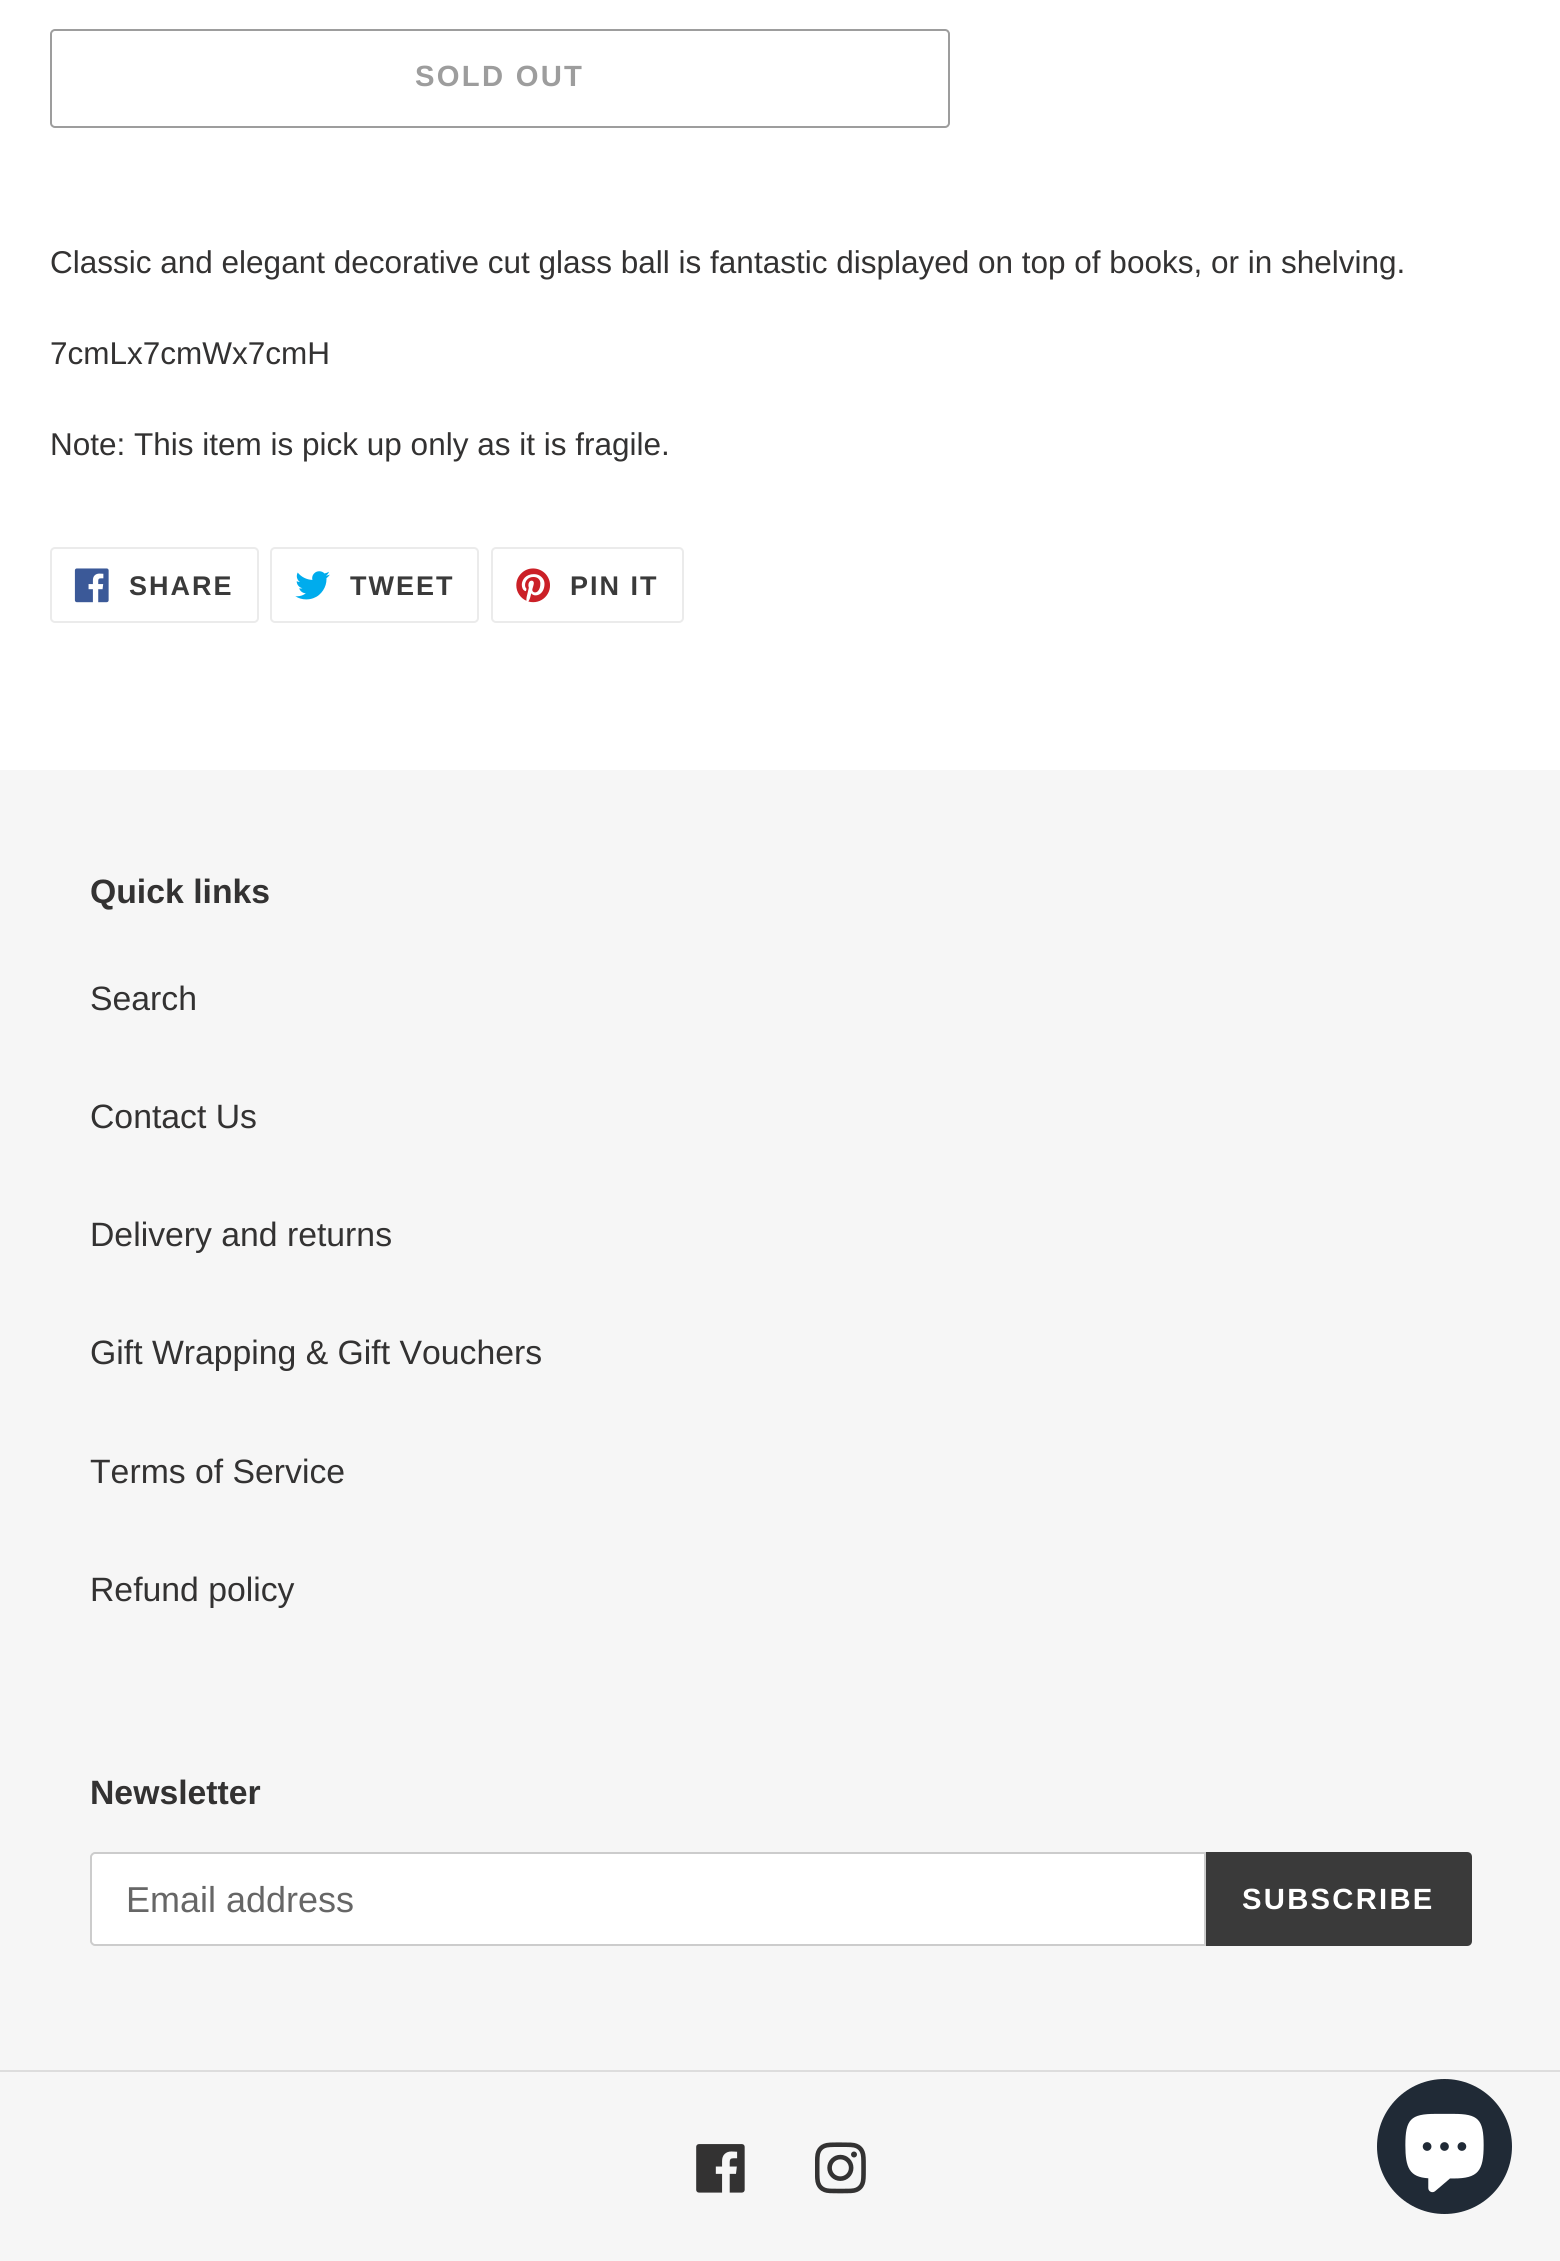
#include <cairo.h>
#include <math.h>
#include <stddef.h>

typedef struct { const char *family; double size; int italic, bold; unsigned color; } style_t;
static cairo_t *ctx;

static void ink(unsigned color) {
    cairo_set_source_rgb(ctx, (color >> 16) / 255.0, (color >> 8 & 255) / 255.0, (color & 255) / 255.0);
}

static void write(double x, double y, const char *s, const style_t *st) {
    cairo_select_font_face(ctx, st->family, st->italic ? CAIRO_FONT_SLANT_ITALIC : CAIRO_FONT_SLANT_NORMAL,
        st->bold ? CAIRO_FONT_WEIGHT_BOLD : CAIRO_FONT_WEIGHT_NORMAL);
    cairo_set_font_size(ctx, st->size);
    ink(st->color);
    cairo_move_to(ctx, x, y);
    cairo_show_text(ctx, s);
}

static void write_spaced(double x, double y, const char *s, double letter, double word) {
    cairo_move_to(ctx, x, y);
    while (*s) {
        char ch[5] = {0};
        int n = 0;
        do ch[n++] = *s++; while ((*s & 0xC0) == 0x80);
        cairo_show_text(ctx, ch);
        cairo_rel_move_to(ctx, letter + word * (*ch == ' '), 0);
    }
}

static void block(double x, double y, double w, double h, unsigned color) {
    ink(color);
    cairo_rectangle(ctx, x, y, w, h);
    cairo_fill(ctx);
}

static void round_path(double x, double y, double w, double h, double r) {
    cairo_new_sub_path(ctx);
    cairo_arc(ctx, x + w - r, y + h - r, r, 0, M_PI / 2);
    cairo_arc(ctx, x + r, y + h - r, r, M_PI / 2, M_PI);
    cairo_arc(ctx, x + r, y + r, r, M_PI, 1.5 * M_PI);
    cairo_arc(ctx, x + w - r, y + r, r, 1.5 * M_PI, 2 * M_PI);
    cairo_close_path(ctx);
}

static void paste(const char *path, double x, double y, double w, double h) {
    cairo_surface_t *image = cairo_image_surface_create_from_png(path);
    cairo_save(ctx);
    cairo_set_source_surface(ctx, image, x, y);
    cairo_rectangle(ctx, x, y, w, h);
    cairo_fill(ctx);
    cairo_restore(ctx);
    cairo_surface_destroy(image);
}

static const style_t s1 = {"Liberation Sans", 31.5, 0, 0, 0x333232};
static const style_t s2 = {"Liberation Sans", 33.75, 0, 1, 0x333232};
static const style_t s3 = {"Liberation Sans", 33.75, 0, 0, 0x333232};
static const style_t s4 = {"Liberation Sans", 36, 0, 0, 0x666666};

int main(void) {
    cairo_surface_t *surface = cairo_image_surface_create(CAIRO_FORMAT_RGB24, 1560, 2261);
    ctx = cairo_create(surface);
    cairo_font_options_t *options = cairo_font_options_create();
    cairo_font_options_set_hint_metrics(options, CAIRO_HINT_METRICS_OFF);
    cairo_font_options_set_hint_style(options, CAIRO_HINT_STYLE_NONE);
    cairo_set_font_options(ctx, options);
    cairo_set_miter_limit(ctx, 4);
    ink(0xffffff);
    cairo_paint(ctx);
    round_path(51, 30, 898, 97, 4);
    ink(0x9d9d9d);
    cairo_stroke(ctx);
    cairo_select_font_face(ctx, "Liberation Sans", CAIRO_FONT_SLANT_NORMAL, CAIRO_FONT_WEIGHT_BOLD);
    cairo_set_font_size(ctx, 29.25);
    write_spaced(415, 86, "SOLD OUT", 2.25, 0);
    write(50, 273, "Classic and elegant decorative cut glass ball is fantastic displayed on top of books, or in shelving.", &s1);
    write(50, 364, "7cmLx7cmWx7cmH", &s1);
    write(50, 455, "Note: This item is pick up only as it is fragile.", &s1);
    round_path(51, 548, 207, 74, 4);
    ink(0xebebeb);
    cairo_stroke(ctx);
    paste("pic1.png", 74, 568, 35, 35);
    cairo_select_font_face(ctx, "Liberation Sans", CAIRO_FONT_SLANT_NORMAL, CAIRO_FONT_WEIGHT_BOLD);
    cairo_set_font_size(ctx, 27);
    ink(0x3a3a3a);
    write_spaced(129, 595, "SHARE", 2, 0);
    round_path(271, 548, 207, 74, 4);
    ink(0xebebeb);
    cairo_stroke(ctx);
    paste("pic2.png", 295, 571, 35, 29);
    ink(0x3a3a3a);
    write_spaced(350, 595, "TWEET", 2, 0);
    round_path(492, 548, 191, 74, 4);
    ink(0xebebeb);
    cairo_stroke(ctx);
    paste("pic3.png", 516, 568, 34, 35);
    ink(0x3a3a3a);
    write_spaced(570, 595, "PIN IT", 2, 0);
    block(0, 770, 1560, 1491, 0xf6f6f6);
    write(90, 903, "Quick links", &s2);
    write(90, 1010, "Search", &s3);
    write(90, 1128, "Contact Us", &s3);
    write(90, 1246, "Delivery and returns", &s3);
    write(90, 1364, "Gift Wrapping & Gift Vouchers", &s3);
    write(90, 1483, "Terms of Service", &s3);
    write(90, 1601, "Refund policy", &s3);
    write(90, 1804, "Newsletter", &s2);
    ink(0xffffff);
    cairo_new_path(ctx);
    cairo_move_to(ctx, 95, 1853);
    cairo_line_to(ctx, 1205, 1853);
    cairo_line_to(ctx, 1205, 1945);
    cairo_line_to(ctx, 95, 1945);
    cairo_curve_to(ctx, 93, 1945, 91, 1943, 91, 1941);
    cairo_line_to(ctx, 91, 1857);
    cairo_curve_to(ctx, 91, 1855, 93, 1853, 95, 1853);
    cairo_close_path(ctx);
    cairo_fill_preserve(ctx);
    ink(0xcccccc);
    cairo_stroke(ctx);
    write(126, 1912, "Email address", &s4);
    ink(0x3a3a3a);
    cairo_new_path(ctx);
    cairo_move_to(ctx, 1206, 1852);
    cairo_line_to(ctx, 1467, 1852);
    cairo_curve_to(ctx, 1470, 1852, 1472, 1854, 1472, 1857);
    cairo_line_to(ctx, 1472, 1941);
    cairo_curve_to(ctx, 1472, 1944, 1470, 1946, 1467, 1946);
    cairo_line_to(ctx, 1206, 1946);
    cairo_close_path(ctx);
    cairo_fill(ctx);
    cairo_select_font_face(ctx, "Liberation Sans", CAIRO_FONT_SLANT_NORMAL, CAIRO_FONT_WEIGHT_BOLD);
    cairo_set_font_size(ctx, 29.25);
    ink(0xffffff);
    write_spaced(1242, 1909, "SUBSCRIBE", 2.25, 0);
    block(0, 2070, 1560, 2, 0xdddddd);
    paste("pic4.png", 696, 2144, 49, 49);
    paste("pic5.png", 815, 2142, 51, 52);
    ink(0x202a36);
    cairo_arc(ctx, 1444.5, 2146.5, 67.5, 0, 2 * M_PI);
    cairo_fill(ctx);
    paste("pic6.png", 1405, 2113, 79, 80);
    cairo_surface_write_to_png(surface, "screenshot.png");
    cairo_font_options_destroy(options);
    cairo_destroy(ctx);
    cairo_surface_destroy(surface);
    return 0;
}
